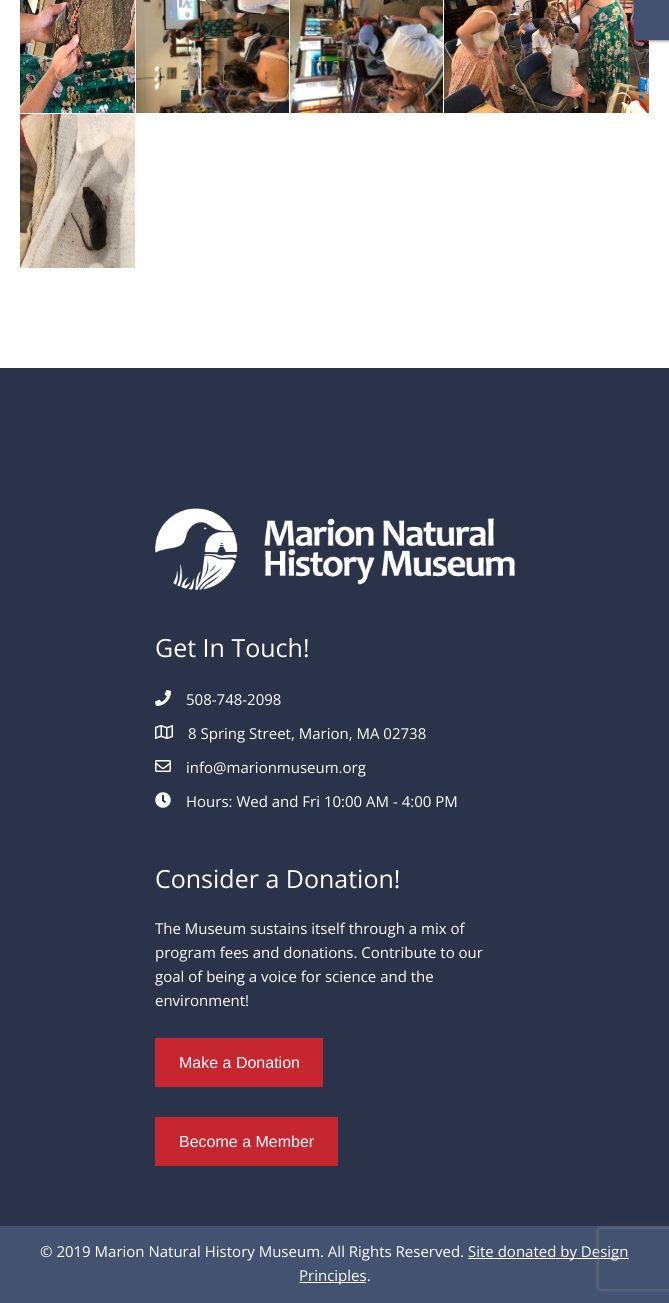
#include <cairo.h>
#include <math.h>
#include <stddef.h>

typedef struct { const char *family; double size; int italic, bold; unsigned color; } style_t;
static cairo_t *ctx;

static void ink(unsigned color) {
    cairo_set_source_rgb(ctx, (color >> 16) / 255.0, (color >> 8 & 255) / 255.0, (color & 255) / 255.0);
}

static void write(double x, double y, const char *s, const style_t *st) {
    cairo_select_font_face(ctx, st->family, st->italic ? CAIRO_FONT_SLANT_ITALIC : CAIRO_FONT_SLANT_NORMAL,
        st->bold ? CAIRO_FONT_WEIGHT_BOLD : CAIRO_FONT_WEIGHT_NORMAL);
    cairo_set_font_size(ctx, st->size);
    ink(st->color);
    cairo_move_to(ctx, x, y);
    cairo_show_text(ctx, s);
}

static void block(double x, double y, double w, double h, unsigned color) {
    ink(color);
    cairo_rectangle(ctx, x, y, w, h);
    cairo_fill(ctx);
}

static void round_path(double x, double y, double w, double h, double r) {
    cairo_new_sub_path(ctx);
    cairo_arc(ctx, x + w - r, y + h - r, r, 0, M_PI / 2);
    cairo_arc(ctx, x + r, y + h - r, r, M_PI / 2, M_PI);
    cairo_arc(ctx, x + r, y + r, r, M_PI, 1.5 * M_PI);
    cairo_arc(ctx, x + w - r, y + r, r, 1.5 * M_PI, 2 * M_PI);
    cairo_close_path(ctx);
}

static void blur_box(double x, double y, double w, double h, double r, double blur, double alpha) {
    cairo_push_group_with_content(ctx, CAIRO_CONTENT_ALPHA);
    cairo_set_operator(ctx, CAIRO_OPERATOR_SOURCE);
    for (int i = 15; i >= -15 && fmin(w, h) + blur * i / 3 > 0; i -= 2) {
        double e = blur * i / 6;
        cairo_set_source_rgba(ctx, 0, 0, 0, alpha * erfc((i - 1) / 8.5) / 2);
        round_path(x - e, y - e, w + 2 * e, h + 2 * e, fmax(0, fmin(r + e + blur * .6, fmin(w, h) / 2 + e)));
        cairo_fill(ctx);
    }
    cairo_pattern_t *soft = cairo_pop_group(ctx);
    cairo_mask(ctx, soft);
    cairo_pattern_destroy(soft);
}

static void paste(const char *path, double x, double y, double w, double h) {
    cairo_surface_t *image = cairo_image_surface_create_from_png(path);
    cairo_save(ctx);
    cairo_set_source_surface(ctx, image, x, y);
    cairo_rectangle(ctx, x, y, w, h);
    cairo_fill(ctx);
    cairo_restore(ctx);
    cairo_surface_destroy(image);
}

static const style_t s1 = {"Open Sans", 25, 0, 0, 0xffffff};
static const style_t s2 = {"Open Sans", 15, 0, 0, 0xffffff};
static const style_t s3 = {"Liberation Sans", 16, 0, 0, 0xffffff};

int main(void) {
    cairo_surface_t *surface = cairo_image_surface_create(CAIRO_FORMAT_RGB24, 669, 1303);
    ctx = cairo_create(surface);
    cairo_font_options_t *options = cairo_font_options_create();
    cairo_font_options_set_hint_metrics(options, CAIRO_HINT_METRICS_OFF);
    cairo_font_options_set_hint_style(options, CAIRO_HINT_STYLE_NONE);
    cairo_set_font_options(ctx, options);
    cairo_set_miter_limit(ctx, 4);
    ink(0xffffff);
    cairo_paint(ctx);
    paste("pic1.png", 20, 0, 115, 113);
    paste("pic2.png", 136, 0, 153, 113);
    paste("pic3.png", 290, 0, 153, 113);
    paste("pic4.png", 444, 0, 205, 113);
    paste("pic5.png", 20, 114, 115, 154);
    ink(0x4e3c3c);
    blur_box(634, 0, 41, 40, 0, 2, 1);
    block(634, 0, 35, 40, 0x445272);
    block(0, 368, 669, 858, 0x2a3349);
    paste("pic6.png", 155, 508, 360, 82);
    write(155, 657, "Get In Touch!", &s1);
    paste("pic7.png", 155, 690, 16, 16);
    write(186, 705, "508-748-2098", &s2);
    paste("pic8.png", 155, 725, 18, 14);
    write(188, 739, "8 Spring Street, Marion, MA 02738", &s2);
    paste("pic9.png", 155, 760, 16, 12);
    write(186, 773, "info@marionmuseum.org", &s2);
    paste("pic10.png", 155, 792, 16, 16);
    write(186, 807, "Hours: Wed and Fri 10:00 AM - 4:00 PM", &s2);
    write(155, 888, "Consider a Donation!", &s1);
    write(155, 934, "The Museum sustains itself through a mix of", &s2);
    write(155, 958, "program fees and donations. Contribute to our", &s2);
    write(155, 982, "goal of being a voice for science and the", &s2);
    write(155, 1006, "environment!", &s2);
    block(155, 1038, 168, 49, 0xc6262f);
    write(179, 1068, "Make a Donation", &s3);
    block(155, 1117, 183, 49, 0xc6262f);
    write(179, 1147, "Become a Member", &s3);
    block(0, 1226, 669, 77, 0x445272);
    write(40, 1257, "© 2019 Marion Natural History Museum. All Rights Reserved.", &s2);
    block(468, 1258, 161, 1, 0xffffff);
    write(468, 1257, "Site donated by Design", &s2);
    block(299, 1282, 67, 1, 0xffffff);
    write(299, 1281, "Principles.", &s2);
    cairo_save(ctx);
    cairo_set_fill_rule(ctx, CAIRO_FILL_RULE_EVEN_ODD);
    cairo_new_path(ctx);
    cairo_move_to(ctx, 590, 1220);
    cairo_line_to(ctx, 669, 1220);
    cairo_line_to(ctx, 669, 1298);
    cairo_line_to(ctx, 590, 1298);
    cairo_close_path(ctx);
    cairo_move_to(ctx, 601, 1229);
    cairo_line_to(ctx, 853, 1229);
    cairo_curve_to(ctx, 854, 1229, 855, 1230, 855, 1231);
    cairo_line_to(ctx, 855, 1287);
    cairo_curve_to(ctx, 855, 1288, 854, 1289, 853, 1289);
    cairo_line_to(ctx, 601, 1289);
    cairo_curve_to(ctx, 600, 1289, 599, 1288, 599, 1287);
    cairo_line_to(ctx, 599, 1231);
    cairo_curve_to(ctx, 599, 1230, 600, 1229, 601, 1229);
    cairo_close_path(ctx);
    cairo_clip(ctx);
    ink(0x808080);
    blur_box(599, 1229, 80, 60, 2, 2.5, 1);
    cairo_restore(ctx);
    cairo_surface_write_to_png(surface, "screenshot.png");
    cairo_font_options_destroy(options);
    cairo_destroy(ctx);
    cairo_surface_destroy(surface);
    return 0;
}
